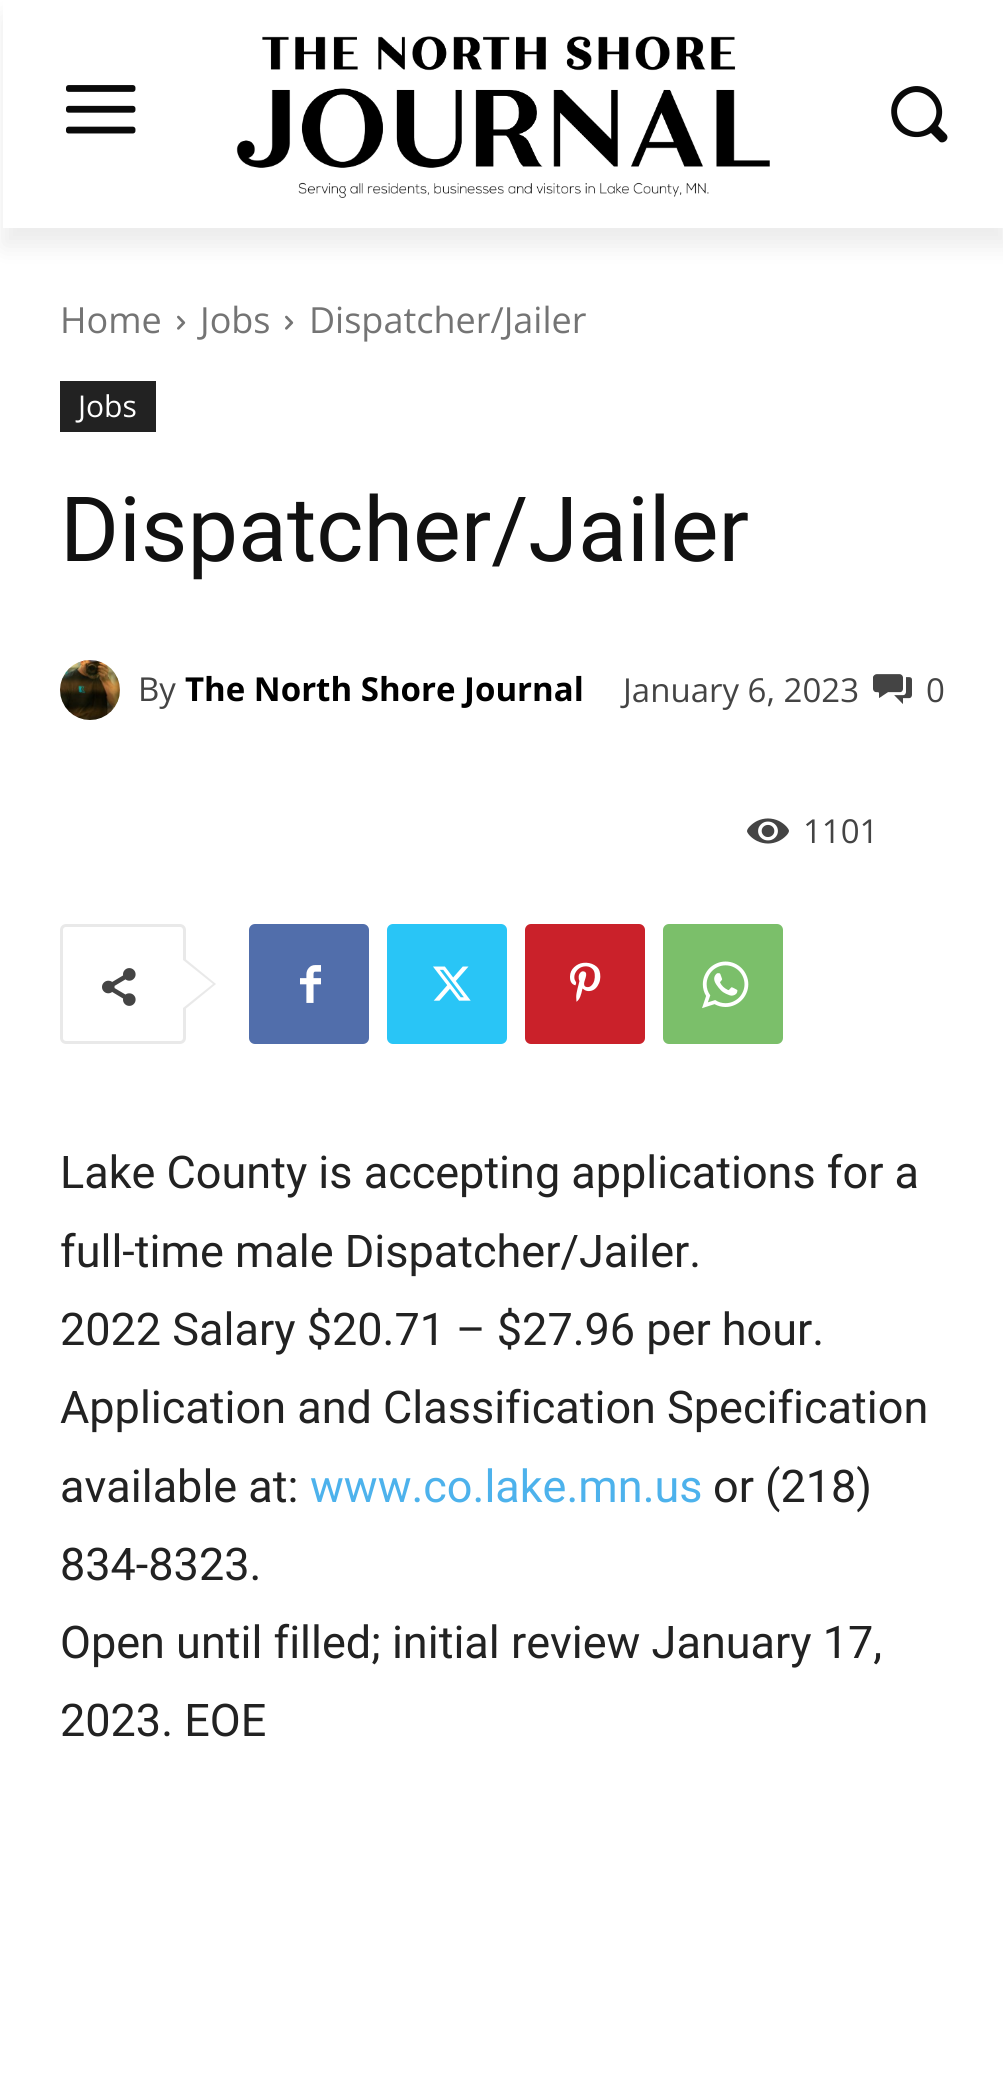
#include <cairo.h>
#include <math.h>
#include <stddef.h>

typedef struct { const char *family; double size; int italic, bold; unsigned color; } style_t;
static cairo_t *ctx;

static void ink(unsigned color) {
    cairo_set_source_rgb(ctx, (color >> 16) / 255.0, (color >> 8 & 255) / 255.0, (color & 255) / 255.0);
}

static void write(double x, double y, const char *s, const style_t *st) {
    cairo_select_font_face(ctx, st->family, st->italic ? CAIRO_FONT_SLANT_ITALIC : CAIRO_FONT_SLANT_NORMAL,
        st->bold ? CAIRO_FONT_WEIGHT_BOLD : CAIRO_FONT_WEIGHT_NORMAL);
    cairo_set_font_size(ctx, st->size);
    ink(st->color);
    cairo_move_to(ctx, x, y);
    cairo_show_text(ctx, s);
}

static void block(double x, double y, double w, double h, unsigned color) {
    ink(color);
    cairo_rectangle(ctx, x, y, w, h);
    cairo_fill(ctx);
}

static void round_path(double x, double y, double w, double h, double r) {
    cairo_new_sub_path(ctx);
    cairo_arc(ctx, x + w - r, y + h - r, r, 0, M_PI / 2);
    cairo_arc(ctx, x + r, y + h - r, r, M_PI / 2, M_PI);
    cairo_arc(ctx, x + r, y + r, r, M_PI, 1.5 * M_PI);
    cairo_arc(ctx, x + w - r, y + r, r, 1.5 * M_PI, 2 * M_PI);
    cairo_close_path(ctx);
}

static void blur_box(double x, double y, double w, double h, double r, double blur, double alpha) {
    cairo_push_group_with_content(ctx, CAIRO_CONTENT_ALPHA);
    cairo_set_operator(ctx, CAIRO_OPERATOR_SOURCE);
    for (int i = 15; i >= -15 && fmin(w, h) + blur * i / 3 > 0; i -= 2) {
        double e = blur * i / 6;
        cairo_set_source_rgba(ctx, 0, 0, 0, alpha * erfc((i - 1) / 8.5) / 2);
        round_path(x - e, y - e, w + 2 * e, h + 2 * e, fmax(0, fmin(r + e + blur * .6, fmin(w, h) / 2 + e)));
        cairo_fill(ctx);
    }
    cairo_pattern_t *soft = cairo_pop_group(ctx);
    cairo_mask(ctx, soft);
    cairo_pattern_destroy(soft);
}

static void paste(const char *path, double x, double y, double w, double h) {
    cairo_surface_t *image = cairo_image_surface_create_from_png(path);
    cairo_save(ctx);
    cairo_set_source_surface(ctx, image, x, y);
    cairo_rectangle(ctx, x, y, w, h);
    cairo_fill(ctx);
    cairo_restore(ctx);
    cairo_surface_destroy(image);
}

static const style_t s1 = {"Open Sans", 36, 0, 0, 0x747474};
static const style_t s2 = {"Open Sans", 30, 0, 0, 0xffffff};
static const style_t s3 = {"Roboto", 90, 0, 0, 0x111111};
static const style_t s4 = {"Open Sans", 33, 0, 0, 0x444444};
static const style_t s5 = {"Open Sans", 33, 0, 1, 0x000000};
static const style_t s6 = {"Roboto", 45, 0, 0, 0x222222};
static const style_t s7 = {"Roboto", 45, 0, 0, 0x4db2ec};

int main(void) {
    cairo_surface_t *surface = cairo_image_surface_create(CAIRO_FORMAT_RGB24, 1003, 2090);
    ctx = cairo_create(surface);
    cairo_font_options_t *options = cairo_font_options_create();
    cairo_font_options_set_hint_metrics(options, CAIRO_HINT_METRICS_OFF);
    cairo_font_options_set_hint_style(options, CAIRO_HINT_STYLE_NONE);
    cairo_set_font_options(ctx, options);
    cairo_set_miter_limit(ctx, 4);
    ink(0xffffff);
    cairo_paint(ctx);
    paste("pic1.png", 66, 85, 70, 49);
    paste("pic2.png", 236, 36, 534, 162);
    ink(0x0a0a0a);
    cairo_new_path(ctx);
    cairo_move_to(ctx, 946, 134);
    cairo_line_to(ctx, 938, 126);
    cairo_curve_to(ctx, 952, 104, 928, 77, 905, 89);
    cairo_curve_to(ctx, 899, 92, 895, 97, 893, 102);
    cairo_curve_to(ctx, 890, 109, 891, 117, 894, 124);
    cairo_curve_to(ctx, 901, 137, 918, 141, 931, 133);
    cairo_line_to(ctx, 940, 142);
    cairo_curve_to(ctx, 945, 144, 950, 138, 946, 134);
    cairo_close_path(ctx);
    cairo_move_to(ctx, 930, 126);
    cairo_curve_to(ctx, 912, 144, 885, 116, 903, 98);
    cairo_curve_to(ctx, 921, 80, 949, 107, 930, 126);
    cairo_close_path(ctx);
    cairo_fill(ctx);
    cairo_save(ctx);
    cairo_set_fill_rule(ctx, CAIRO_FILL_RULE_EVEN_ODD);
    cairo_new_path(ctx);
    cairo_move_to(ctx, 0, 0);
    cairo_line_to(ctx, 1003, 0);
    cairo_line_to(ctx, 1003, 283);
    cairo_line_to(ctx, 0, 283);
    cairo_close_path(ctx);
    cairo_move_to(ctx, 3, 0);
    cairo_line_to(ctx, 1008, 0);
    cairo_line_to(ctx, 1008, 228);
    cairo_line_to(ctx, 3, 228);
    cairo_close_path(ctx);
    cairo_clip(ctx);
    ink(0x000000);
    blur_box(3, 18, 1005, 228, 0, 12, 0.08);
    cairo_restore(ctx);
    write(60, 333, "Home", &s1);
    paste("pic3.png", 177, 315, 9, 15);
    write(200, 333, "Jobs", &s1);
    paste("pic3.png", 285, 315, 9, 15);
    write(309, 333, "Dispatcher/Jailer", &s1);
    block(60, 381, 96, 51, 0x222222);
    write(78, 417, "Jobs", &s2);
    write(60, 561, "Dispatcher/Jailer", &s3);
    paste("pic4.png", 60, 660, 60, 60);
    write(138, 701, "By", &s4);
    write(185, 701, "The North Shore Journal", &s5);
    write(623, 702, "January 6, 2023", &s4);
    paste("pic5.png", 873, 674, 39, 30);
    write(926, 702, "0", &s4);
    paste("pic6.png", 747, 818, 42, 26);
    write(803, 843, "1101", &s4);
    round_path(61.5, 925.5, 123, 117, 4.5);
    ink(0xe9e9e9);
    cairo_set_line_width(ctx, 3);
    cairo_stroke(ctx);
    cairo_new_path(ctx);
    cairo_move_to(ctx, 183, 1011);
    cairo_line_to(ctx, 183, 957);
    cairo_line_to(ctx, 216, 984);
    cairo_close_path(ctx);
    cairo_fill(ctx);
    paste("pic7.png", 102, 968, 34, 38);
    ink(0xffffff);
    cairo_new_path(ctx);
    cairo_move_to(ctx, 183, 1008);
    cairo_line_to(ctx, 183, 960);
    cairo_line_to(ctx, 213, 984);
    cairo_close_path(ctx);
    cairo_fill(ctx);
    ink(0x516eab);
    round_path(249, 924, 120, 120, 6);
    cairo_fill(ctx);
    paste("pic8.png", 300, 965, 21, 38);
    ink(0x29c5f6);
    round_path(387, 924, 120, 120, 6);
    cairo_fill(ctx);
    paste("pic9.png", 433, 966, 38, 35);
    ink(0xca212a);
    round_path(525, 924, 120, 120, 6);
    cairo_fill(ctx);
    paste("pic10.png", 570, 962, 31, 40);
    ink(0x7bbf6a);
    round_path(663, 924, 120, 120, 6);
    cairo_fill(ctx);
    paste("pic11.png", 702, 961, 47, 48);
    write(60, 1188, "Lake County is accepting applications for a", &s6);
    write(60, 1267, "full-time male Dispatcher/Jailer.", &s6);
    write(60, 1345, "2022 Salary $20.71 – $27.96 per hour.", &s6);
    write(60, 1423, "Application and Classification Specification", &s6);
    write(60, 1502, "available at:", &s6);
    write(310, 1502, "www.co.lake.mn.us", &s7);
    write(713, 1502, "or (218)", &s6);
    write(60, 1580, "834-8323.", &s6);
    write(60, 1658, "Open until filled; initial review January 17,", &s6);
    write(60, 1736, "2023. EOE", &s6);
    cairo_surface_write_to_png(surface, "screenshot.png");
    cairo_font_options_destroy(options);
    cairo_destroy(ctx);
    cairo_surface_destroy(surface);
    return 0;
}
